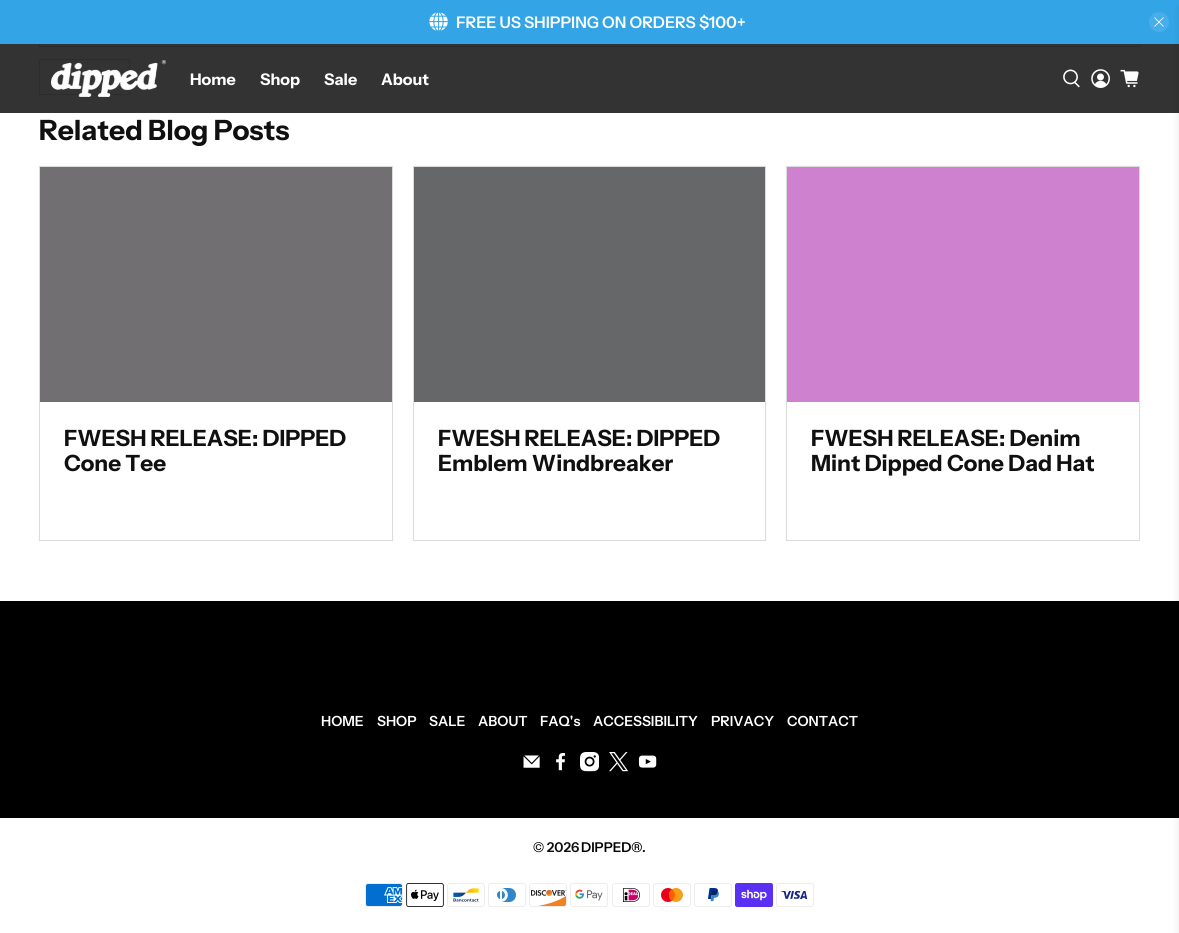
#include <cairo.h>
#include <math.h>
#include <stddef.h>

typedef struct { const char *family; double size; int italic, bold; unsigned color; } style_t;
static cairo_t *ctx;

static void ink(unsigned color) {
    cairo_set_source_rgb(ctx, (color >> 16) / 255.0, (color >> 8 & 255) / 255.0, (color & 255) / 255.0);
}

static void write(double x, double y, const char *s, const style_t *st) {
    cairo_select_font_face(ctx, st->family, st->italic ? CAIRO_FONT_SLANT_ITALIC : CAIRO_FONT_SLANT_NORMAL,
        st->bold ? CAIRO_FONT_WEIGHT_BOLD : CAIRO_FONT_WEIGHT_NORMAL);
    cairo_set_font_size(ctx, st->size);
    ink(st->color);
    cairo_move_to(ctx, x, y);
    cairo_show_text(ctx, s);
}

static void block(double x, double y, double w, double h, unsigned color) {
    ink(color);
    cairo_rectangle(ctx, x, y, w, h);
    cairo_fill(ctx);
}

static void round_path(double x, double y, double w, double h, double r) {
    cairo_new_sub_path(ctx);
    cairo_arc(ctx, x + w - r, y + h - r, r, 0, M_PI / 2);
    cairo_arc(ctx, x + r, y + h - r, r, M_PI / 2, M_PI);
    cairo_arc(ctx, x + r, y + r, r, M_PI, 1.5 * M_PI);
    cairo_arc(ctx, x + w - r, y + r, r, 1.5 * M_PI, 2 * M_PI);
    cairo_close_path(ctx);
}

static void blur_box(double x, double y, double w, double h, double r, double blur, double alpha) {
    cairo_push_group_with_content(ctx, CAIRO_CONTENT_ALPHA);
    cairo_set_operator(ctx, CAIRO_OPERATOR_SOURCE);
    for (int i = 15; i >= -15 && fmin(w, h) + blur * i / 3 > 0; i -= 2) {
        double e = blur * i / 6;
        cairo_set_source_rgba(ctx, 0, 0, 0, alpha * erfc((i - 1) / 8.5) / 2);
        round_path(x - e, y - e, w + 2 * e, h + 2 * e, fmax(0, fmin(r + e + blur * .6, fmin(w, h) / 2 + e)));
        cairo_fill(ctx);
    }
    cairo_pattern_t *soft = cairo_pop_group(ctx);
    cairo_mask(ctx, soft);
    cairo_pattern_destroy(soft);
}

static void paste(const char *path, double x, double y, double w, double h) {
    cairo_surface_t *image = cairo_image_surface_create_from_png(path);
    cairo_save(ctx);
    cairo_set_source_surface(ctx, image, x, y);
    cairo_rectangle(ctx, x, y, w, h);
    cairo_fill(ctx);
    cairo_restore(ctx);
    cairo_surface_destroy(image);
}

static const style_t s1 = {"Instrument Sans SemiBold", 16, 0, 0, 0xffffff};
static const style_t s2 = {"Instrument Sans", 16, 0, 1, 0xffffff};
static const style_t s3 = {"Instrument Sans", 28, 0, 1, 0x101010};
static const style_t s4 = {"Instrument Sans", 22.4, 0, 1, 0x101010};
static const style_t s5 = {"Instrument Sans SemiBold", 14, 0, 0, 0xffffff};
static const style_t s6 = {"Instrument Sans SemiBold", 13.5, 0, 0, 0x101010};
static const style_t s7 = {"Instrument Sans SemiBold", 13.5, 0, 0, 0x000000};

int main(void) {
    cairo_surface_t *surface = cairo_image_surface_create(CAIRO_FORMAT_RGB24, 1179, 933);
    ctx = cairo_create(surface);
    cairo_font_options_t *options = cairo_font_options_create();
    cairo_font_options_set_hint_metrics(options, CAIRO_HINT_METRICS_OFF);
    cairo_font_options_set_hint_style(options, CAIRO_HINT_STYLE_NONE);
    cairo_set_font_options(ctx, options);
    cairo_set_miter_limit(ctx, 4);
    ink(0xffffff);
    cairo_paint(ctx);
    cairo_rectangle(ctx, 39.5, -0.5, 1100, 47);
    ink(0xdcdcdc);
    cairo_set_line_width(ctx, 1);
    cairo_stroke(ctx);
    block(0, 0, 1179, 44, 0x33a5e7);
    paste("pic1.png", 429, 12, 19, 19);
    write(456, 28, "FREE US SHIPPING ON ORDERS $100+", &s1);
    ink(0x47aee9);
    cairo_new_path(ctx);
    cairo_arc(ctx, 1159, 22, 10, 0, 2 * M_PI);
    cairo_fill(ctx);
    paste("pic2.png", 1154, 17, 10, 10);
    cairo_rectangle(ctx, 39.5, 59.5, 90, 35);
    ink(0xdbdbdb);
    cairo_stroke(ctx);
    cairo_set_source_rgba(ctx, 0, 0, 0, 0.8);
    cairo_rectangle(ctx, 0, 44, 1179, 69);
    cairo_fill(ctx);
    block(0, 601, 1179, 217, 0x000000);
    ink(0x0a0a0a);
    blur_box(1179, 8, 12, 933, 0, 4, 0.1);
    paste("pic3.png", 51, 60, 115, 37);
    write(190, 85, "Home", &s2);
    write(260, 85, "Shop", &s2);
    write(324, 85, "Sale", &s2);
    write(381, 85, "About", &s2);
    paste("pic4.png", 1063, 69, 17, 19);
    paste("pic5.png", 1091, 69, 19, 19);
    paste("pic6.png", 1120, 69, 19, 19);
    write(39, 140, "Related Blog Posts", &s3);
    cairo_rectangle(ctx, 38.5, 165.5, 355, 376);
    ink(0xfcfcfc);
    cairo_stroke(ctx);
    cairo_rectangle(ctx, 39.5, 166.5, 353, 374);
    ink(0xdcdcdc);
    cairo_stroke(ctx);
    block(40, 167, 352, 235, 0x716f72);
    write(64, 446, "FWESH RELEASE: DIPPED", &s4);
    write(64, 471, "Cone Tee", &s4);
    cairo_rectangle(ctx, 412.5, 165.5, 354, 376);
    ink(0xfcfcfc);
    cairo_stroke(ctx);
    cairo_rectangle(ctx, 413.5, 166.5, 352, 374);
    ink(0xdcdcdc);
    cairo_stroke(ctx);
    block(414, 167, 351, 235, 0x656768);
    write(438, 446, "FWESH RELEASE: DIPPED", &s4);
    write(438, 471, "Emblem Windbreaker", &s4);
    cairo_rectangle(ctx, 785.5, 165.5, 355, 376);
    ink(0xfcfcfc);
    cairo_stroke(ctx);
    cairo_rectangle(ctx, 786.5, 166.5, 353, 374);
    ink(0xdcdcdc);
    cairo_stroke(ctx);
    block(787, 167, 352, 235, 0xcd81cf);
    write(811, 446, "FWESH RELEASE: Denim", &s4);
    write(811, 471, "Mint Dipped Cone Dad Hat", &s4);
    write(321, 726, "HOME", &s5);
    write(377, 726, "SHOP", &s5);
    write(429, 726, "SALE", &s5);
    write(478, 726, "ABOUT", &s5);
    write(540, 726, "FAQ's", &s5);
    write(593, 726, "ACCESSIBILITY", &s5);
    write(711, 726, "PRIVACY", &s5);
    write(787, 726, "CONTACT", &s5);
    paste("pic7.png", 523, 755, 17, 13);
    paste("pic8.png", 556, 753, 10, 18);
    paste("pic9.png", 580, 752, 19, 20);
    paste("pic10.png", 609, 752, 19, 20);
    paste("pic11.png", 638, 755, 19, 13);
    write(533, 852, "© 2026", &s6);
    write(581, 852, "DIPPED®", &s7);
    write(642, 852, ".", &s6);
    paste("pic12.png", 365, 883, 38, 24);
    paste("pic13.png", 406, 883, 38, 24);
    paste("pic14.png", 447, 883, 38, 24);
    paste("pic15.png", 488, 883, 38, 24);
    paste("pic16.png", 529, 883, 38, 24);
    paste("pic17.png", 570, 883, 38, 24);
    paste("pic18.png", 612, 883, 38, 24);
    paste("pic19.png", 653, 883, 38, 24);
    paste("pic20.png", 694, 883, 38, 24);
    paste("pic21.png", 735, 883, 38, 24);
    paste("pic22.png", 776, 883, 38, 24);
    cairo_surface_write_to_png(surface, "screenshot.png");
    cairo_font_options_destroy(options);
    cairo_destroy(ctx);
    cairo_surface_destroy(surface);
    return 0;
}
